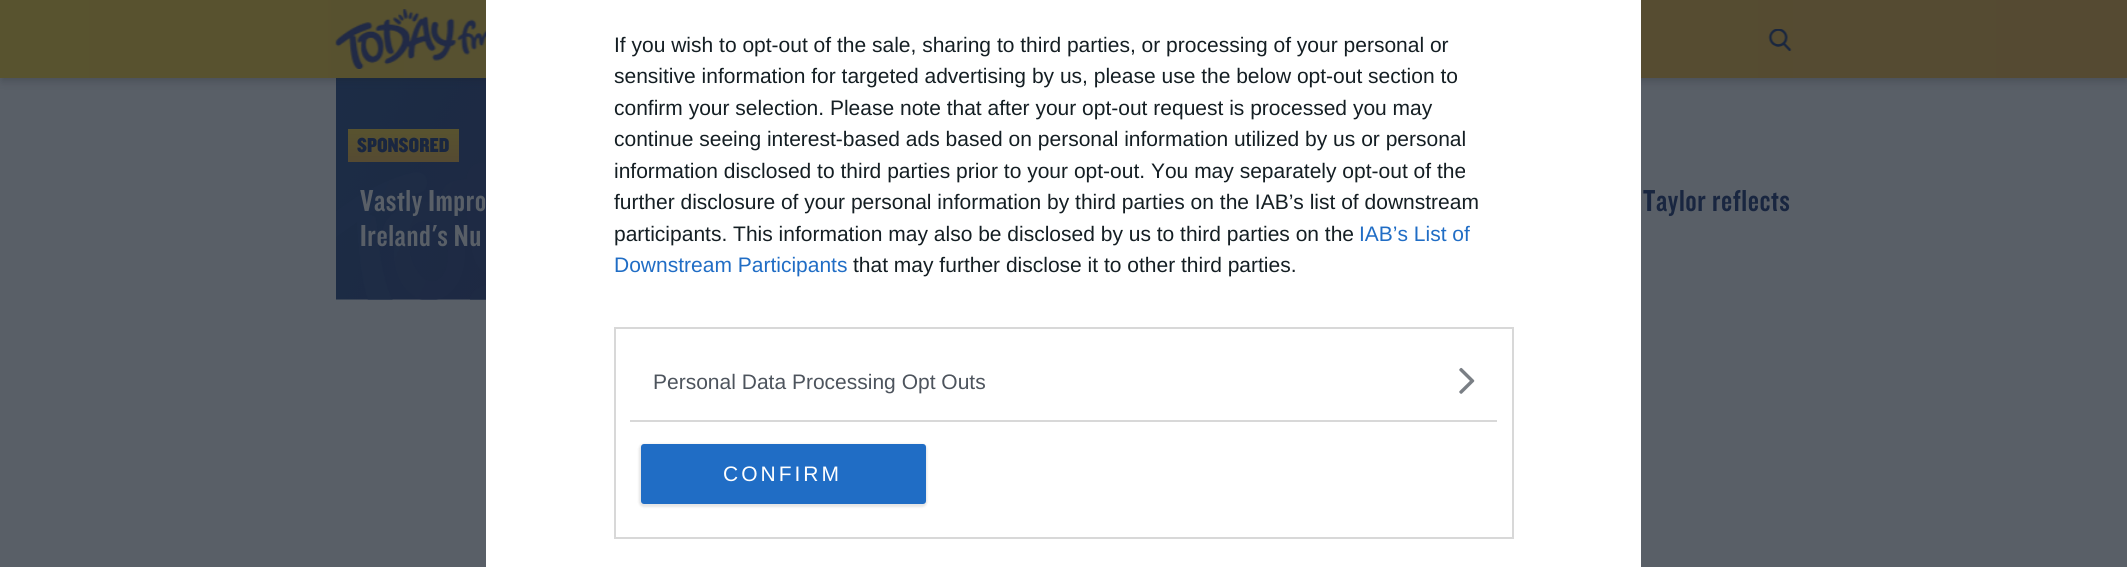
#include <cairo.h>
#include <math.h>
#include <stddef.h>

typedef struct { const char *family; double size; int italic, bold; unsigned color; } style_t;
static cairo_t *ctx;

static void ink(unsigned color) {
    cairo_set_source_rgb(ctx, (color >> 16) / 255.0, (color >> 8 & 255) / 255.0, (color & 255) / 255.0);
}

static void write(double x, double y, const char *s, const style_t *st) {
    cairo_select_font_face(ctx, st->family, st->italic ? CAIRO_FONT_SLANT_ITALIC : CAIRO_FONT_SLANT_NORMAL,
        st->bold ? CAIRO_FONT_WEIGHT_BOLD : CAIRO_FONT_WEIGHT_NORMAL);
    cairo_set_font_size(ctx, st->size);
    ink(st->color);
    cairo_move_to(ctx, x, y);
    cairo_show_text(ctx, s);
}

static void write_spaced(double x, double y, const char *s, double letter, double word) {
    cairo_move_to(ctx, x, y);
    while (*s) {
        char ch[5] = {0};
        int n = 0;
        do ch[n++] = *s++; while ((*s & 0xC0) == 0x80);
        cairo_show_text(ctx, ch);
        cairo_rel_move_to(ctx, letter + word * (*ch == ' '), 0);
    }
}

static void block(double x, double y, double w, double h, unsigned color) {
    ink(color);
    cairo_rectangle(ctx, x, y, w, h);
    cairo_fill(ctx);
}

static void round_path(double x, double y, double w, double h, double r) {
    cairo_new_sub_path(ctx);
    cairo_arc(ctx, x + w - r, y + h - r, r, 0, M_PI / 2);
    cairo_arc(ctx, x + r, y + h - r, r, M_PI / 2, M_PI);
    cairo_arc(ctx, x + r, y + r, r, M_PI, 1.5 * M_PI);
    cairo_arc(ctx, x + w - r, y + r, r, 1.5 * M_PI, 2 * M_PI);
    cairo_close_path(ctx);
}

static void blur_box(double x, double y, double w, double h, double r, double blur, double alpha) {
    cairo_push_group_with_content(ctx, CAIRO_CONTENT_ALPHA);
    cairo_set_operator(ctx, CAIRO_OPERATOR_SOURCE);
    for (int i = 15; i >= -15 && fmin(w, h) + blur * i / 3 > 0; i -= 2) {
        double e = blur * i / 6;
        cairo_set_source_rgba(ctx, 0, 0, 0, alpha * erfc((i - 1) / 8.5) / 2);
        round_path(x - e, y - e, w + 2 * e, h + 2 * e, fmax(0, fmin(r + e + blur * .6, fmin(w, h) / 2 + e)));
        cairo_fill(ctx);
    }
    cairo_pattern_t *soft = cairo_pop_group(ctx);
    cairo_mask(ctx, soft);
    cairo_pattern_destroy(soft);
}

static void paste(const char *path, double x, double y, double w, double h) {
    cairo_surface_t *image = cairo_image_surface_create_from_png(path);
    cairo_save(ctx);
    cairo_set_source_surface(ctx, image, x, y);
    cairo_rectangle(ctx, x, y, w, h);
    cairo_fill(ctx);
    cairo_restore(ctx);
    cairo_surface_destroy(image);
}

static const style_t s1 = {"Liberation Sans", 21, 0, 0, 0x141e23};
static const style_t s2 = {"Liberation Sans", 21, 0, 0, 0x206dc5};
static const style_t s3 = {"Liberation Sans", 21, 0, 0, 0x4d545d};
static const style_t s4 = {"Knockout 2", 21, 0, 0, 0x192640};

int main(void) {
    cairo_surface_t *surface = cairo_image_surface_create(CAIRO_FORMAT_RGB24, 2127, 567);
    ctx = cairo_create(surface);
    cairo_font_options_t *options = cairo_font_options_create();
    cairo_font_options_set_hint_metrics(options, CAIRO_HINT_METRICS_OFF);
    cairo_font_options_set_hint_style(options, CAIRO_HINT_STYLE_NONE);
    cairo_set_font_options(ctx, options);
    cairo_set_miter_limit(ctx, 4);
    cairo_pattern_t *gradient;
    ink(0x595f67);
    cairo_paint(ctx);
    paste("pic4.png", 336, 78, 150, 222);
    ink(0x191f27);
    blur_box(2, 6, 2124, 75, 0, 4.5, 0.26);
    gradient = cairo_pattern_create_linear(0, 39, 2127, 39);
    cairo_pattern_add_color_stop_rgba(gradient, 0, 0.345, 0.325, 0.184, 1);
    cairo_pattern_add_color_stop_rgba(gradient, 1, 0.333, 0.29, 0.196, 1);
    cairo_set_source(ctx, gradient);
    cairo_pattern_destroy(gradient);
    cairo_rectangle(ctx, 0, 0, 2127, 78);
    cairo_fill(ctx);
    block(486, 0, 1155, 567, 0xffffff);
    write(614, 52, "If you wish to opt-out of the sale, sharing to third parties, or processing of your personal or", &s1);
    write(614, 83, "sensitive information for targeted advertising by us, please use the below opt-out section to", &s1);
    write(614, 115, "confirm your selection. Please note that after your opt-out request is processed you may", &s1);
    write(614, 146, "continue seeing interest-based ads based on personal information utilized by us or personal", &s1);
    write(614, 178, "information disclosed to third parties prior to your opt-out. You may separately opt-out of the", &s1);
    write(614, 209, "further disclosure of your personal information by third parties on the IAB’s list of downstream", &s1);
    write(614, 241, "participants. This information may also be disclosed by us to third parties on the", &s1);
    write(1359, 241, "IAB’s List of", &s2);
    write(614, 272, "Downstream Participants", &s2);
    write(853, 272, "that may further disclose it to other third parties.", &s1);
    cairo_rectangle(ctx, 615, 328, 898, 210);
    ink(0xd8d8d8);
    cairo_stroke(ctx);
    block(630, 420, 867, 2, 0xd8d8d8);
    write(653, 389, "Personal Data Processing Opt Outs", &s3);
    paste("pic1.png", 1459, 367, 16, 27);
    ink(0x000000);
    blur_box(639, 444, 288, 63, 5, 1, 0.1);
    ink(0x206dc5);
    round_path(641, 444, 285, 60, 3);
    cairo_fill(ctx);
    ink(0xffffff);
    write_spaced(723, 481, "CONFIRM", 3, 0);
    paste("pic2.png", 335, 9, 151, 60);
    paste("pic3.png", 1768, 29, 24, 22);
    gradient = cairo_pattern_create_linear(404, 129, 404, 162);
    cairo_pattern_add_color_stop_rgba(gradient, 0, 0.345, 0.325, 0.184, 1);
    cairo_pattern_add_color_stop_rgba(gradient, 1, 0.333, 0.29, 0.196, 1);
    cairo_set_source(ctx, gradient);
    cairo_pattern_destroy(gradient);
    cairo_rectangle(ctx, 348, 129, 111, 33);
    cairo_fill(ctx);
    write(357, 152, "SPONSORED", &s4);
    cairo_select_font_face(ctx, "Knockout", CAIRO_FONT_SLANT_NORMAL, CAIRO_FONT_WEIGHT_NORMAL);
    cairo_set_font_size(ctx, 31.5);
    ink(0x595f67);
    write_spaced(360, 211, "Vastly Impro", 0.6, 0);
    write_spaced(360, 246, "Ireland's Nu", 0.6, 0);
    ink(0x192640);
    write_spaced(1643, 211, "Taylor reflects", 0.6, 0);
    cairo_surface_write_to_png(surface, "screenshot.png");
    cairo_font_options_destroy(options);
    cairo_destroy(ctx);
    cairo_surface_destroy(surface);
    return 0;
}
